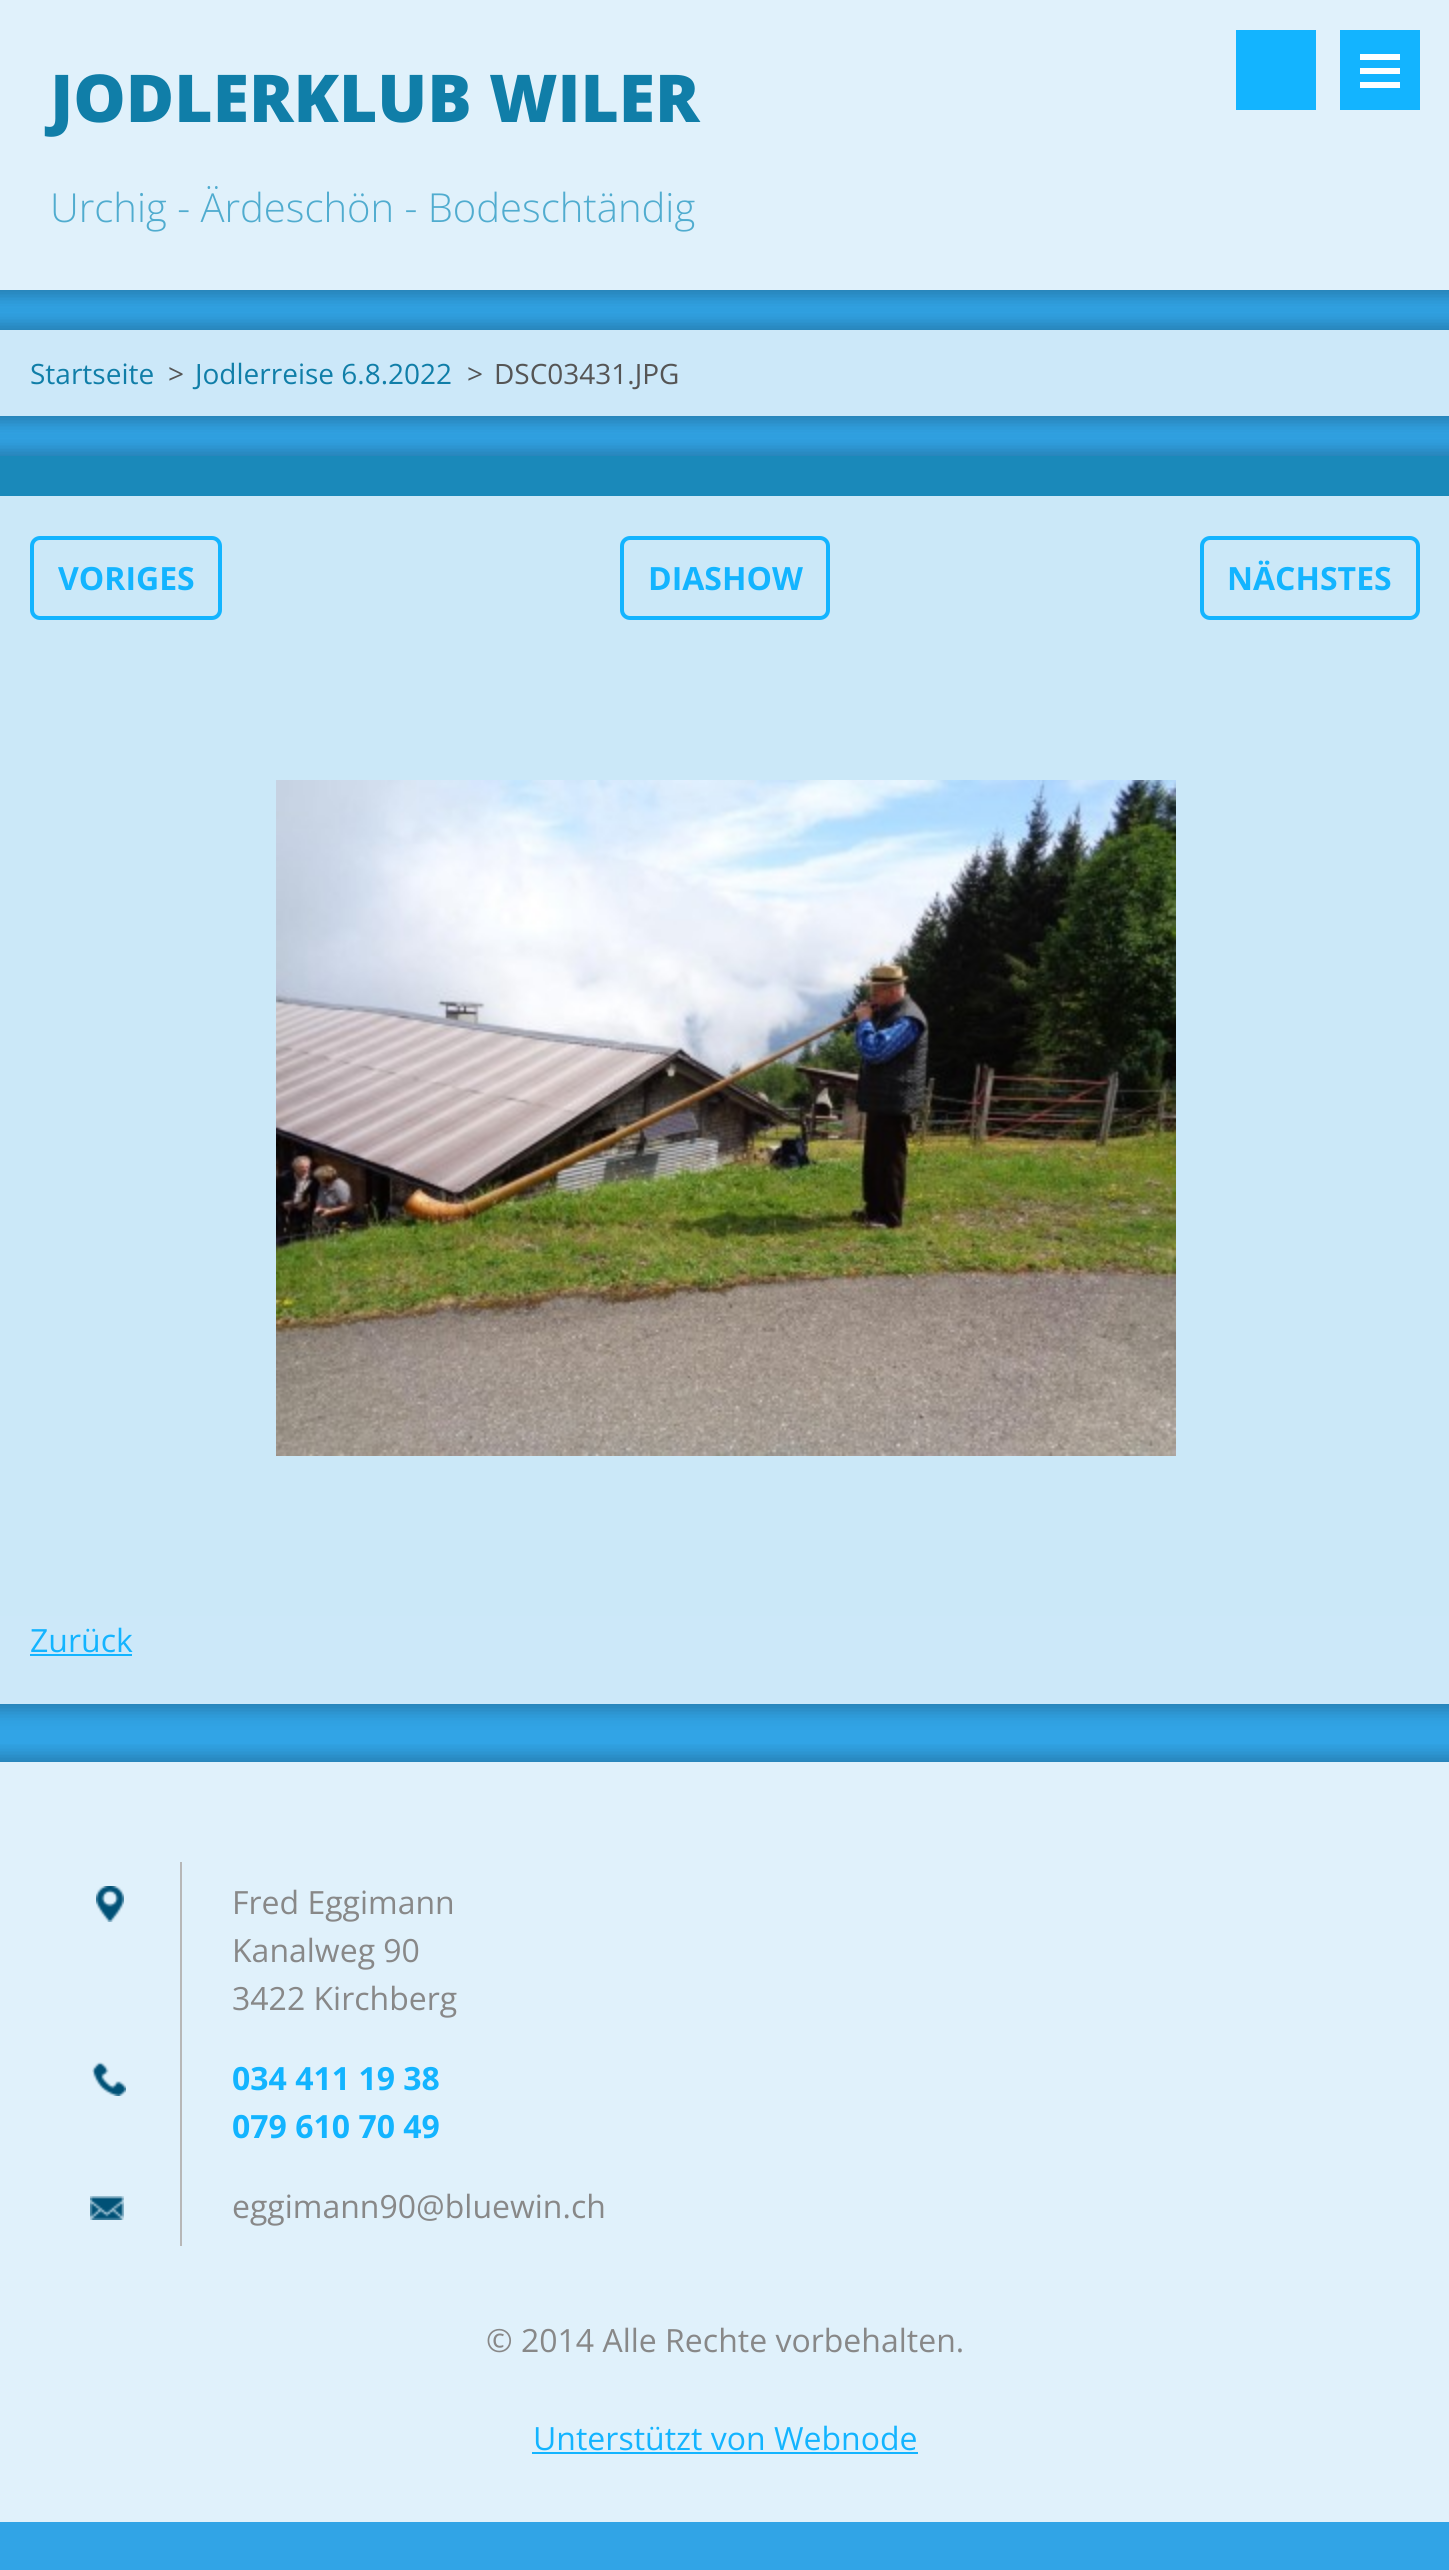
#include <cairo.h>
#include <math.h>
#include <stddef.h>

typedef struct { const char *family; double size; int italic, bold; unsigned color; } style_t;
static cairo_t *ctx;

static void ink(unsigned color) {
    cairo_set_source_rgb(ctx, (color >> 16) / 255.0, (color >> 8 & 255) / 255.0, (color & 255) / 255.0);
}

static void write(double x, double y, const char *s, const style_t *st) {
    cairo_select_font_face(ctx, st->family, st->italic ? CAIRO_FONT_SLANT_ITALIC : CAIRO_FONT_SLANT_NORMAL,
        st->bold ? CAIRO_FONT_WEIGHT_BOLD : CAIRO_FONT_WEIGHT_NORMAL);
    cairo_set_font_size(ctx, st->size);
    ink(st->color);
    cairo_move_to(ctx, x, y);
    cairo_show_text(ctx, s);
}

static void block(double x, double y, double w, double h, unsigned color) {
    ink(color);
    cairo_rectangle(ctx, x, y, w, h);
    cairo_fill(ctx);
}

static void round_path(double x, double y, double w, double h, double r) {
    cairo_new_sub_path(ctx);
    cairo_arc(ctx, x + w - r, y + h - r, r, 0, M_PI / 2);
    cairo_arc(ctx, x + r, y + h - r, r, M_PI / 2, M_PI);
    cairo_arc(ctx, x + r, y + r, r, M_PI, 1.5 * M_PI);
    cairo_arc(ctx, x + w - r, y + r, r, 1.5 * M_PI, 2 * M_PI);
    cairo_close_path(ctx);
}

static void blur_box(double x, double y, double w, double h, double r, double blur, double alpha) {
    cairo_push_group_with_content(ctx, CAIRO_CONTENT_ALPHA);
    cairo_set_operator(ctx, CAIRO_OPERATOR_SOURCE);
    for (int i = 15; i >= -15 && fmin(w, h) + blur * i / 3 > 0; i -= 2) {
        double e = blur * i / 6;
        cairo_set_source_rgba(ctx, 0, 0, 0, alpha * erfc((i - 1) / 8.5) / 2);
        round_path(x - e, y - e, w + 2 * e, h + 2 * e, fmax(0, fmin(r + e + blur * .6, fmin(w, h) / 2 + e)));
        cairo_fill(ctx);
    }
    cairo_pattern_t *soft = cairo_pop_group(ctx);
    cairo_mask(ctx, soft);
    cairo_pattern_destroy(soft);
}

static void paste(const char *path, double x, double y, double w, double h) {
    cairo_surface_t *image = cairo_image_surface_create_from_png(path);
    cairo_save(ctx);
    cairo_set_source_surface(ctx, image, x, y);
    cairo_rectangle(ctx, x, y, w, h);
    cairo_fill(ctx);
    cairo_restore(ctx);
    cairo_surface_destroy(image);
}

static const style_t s1 = {"Open Sans ExtraBold", 66, 0, 0, 0x107ea8};
static const style_t s2 = {"Open Sans Light", 40, 0, 0, 0x50accf};
static const style_t s3 = {"Open Sans", 28, 0, 0, 0x107ea8};
static const style_t s4 = {"Open Sans", 28, 0, 0, 0x555555};
static const style_t s5 = {"Open Sans", 32, 0, 1, 0x13b4ff};
static const style_t s6 = {"Open Sans", 32, 0, 0, 0x13b4ff};
static const style_t s7 = {"Open Sans", 32, 0, 0, 0x888888};

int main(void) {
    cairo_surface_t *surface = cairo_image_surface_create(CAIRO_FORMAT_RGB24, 1449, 2570);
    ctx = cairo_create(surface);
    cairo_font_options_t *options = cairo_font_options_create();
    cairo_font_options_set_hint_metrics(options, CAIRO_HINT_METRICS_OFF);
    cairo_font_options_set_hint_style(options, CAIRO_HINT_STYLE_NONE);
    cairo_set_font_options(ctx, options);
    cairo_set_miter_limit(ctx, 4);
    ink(0x31a4e6);
    cairo_paint(ctx);
    ink(0x000000);
    blur_box(-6, -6, 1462, 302, 0, 9, 0.25);
    block(0, 0, 1449, 290, 0xe0f1fb);
    write(50, 122, "JODLERKLUB WILER", &s1);
    block(1236, 30, 80, 80, 0x13b4ff);
    block(1340, 30, 80, 80, 0x13b4ff);
    block(1360, 54, 40, 6, 0xffffff);
    block(1360, 68, 40, 6, 0xffffff);
    block(1360, 82, 40, 6, 0xffffff);
    write(50, 222, "Urchig - Ärdeschön - Bodeschtändig", &s2);
    ink(0x000000);
    blur_box(-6, 324, 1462, 98, 0, 9, 0.25);
    block(0, 330, 1449, 86, 0xcce8f9);
    write(30, 384, "Startseite", &s3);
    write(168, 384, ">", &s4);
    write(195, 384, "Jodlerreise 6.8.2022", &s3);
    write(467, 384, ">", &s4);
    write(494, 384, "DSC03431.JPG", &s4);
    ink(0x000000);
    blur_box(-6, 450, 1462, 1260, 0, 9, 0.25);
    block(0, 456, 1449, 40, 0x1a89ba);
    block(0, 496, 1449, 1120, 0xcbe8f8);
    round_path(32, 538, 188, 80, 8);
    ink(0x13b4ff);
    cairo_set_line_width(ctx, 4);
    cairo_stroke(ctx);
    write(58, 590, "VORIGES", &s5);
    round_path(622, 538, 206, 80, 8);
    cairo_stroke(ctx);
    write(648, 590, "DIASHOW", &s5);
    round_path(1202, 538, 216, 80, 8);
    cairo_stroke(ctx);
    write(1227, 590, "NÄCHSTES", &s5);
    paste("pic1.png", 276, 780, 900, 676);
    block(0, 1616, 1449, 88, 0xcce8f9);
    write(30, 1652, "Zurück", &s6);
    block(30, 1654, 102, 2, 0x13b4ff);
    cairo_save(ctx);
    cairo_rectangle(ctx, 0, 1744, 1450, 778);
    cairo_clip(ctx);
    ink(0x000000);
    blur_box(-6, 1756, 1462, 772, 0, 9, 0.25);
    cairo_restore(ctx);
    block(0, 1762, 1449, 760, 0xe0f1fb);
    paste("pic2.png", 96, 1886, 28, 36);
    block(180, 1862, 2, 384, 0xb7b7b7);
    write(232, 1914, "Fred Eggimann", &s7);
    write(232, 1962, "Kanalweg 90", &s7);
    write(232, 2010, "3422 Kirchberg", &s7);
    paste("pic3.png", 92, 2062, 34, 34);
    write(232, 2090, "034 411 19 38", &s5);
    write(232, 2138, "079 610 70 49", &s5);
    paste("pic4.png", 90, 2196, 34, 24);
    write(232, 2218, "eggimann90@bluewin.ch", &s7);
    write(486, 2352, "© 2014 Alle Rechte vorbehalten.", &s7);
    write(533, 2450, "Unterstützt von Webnode", &s6);
    block(532, 2452, 386, 2, 0x13b4ff);
    cairo_surface_write_to_png(surface, "screenshot.png");
    cairo_font_options_destroy(options);
    cairo_destroy(ctx);
    cairo_surface_destroy(surface);
    return 0;
}
